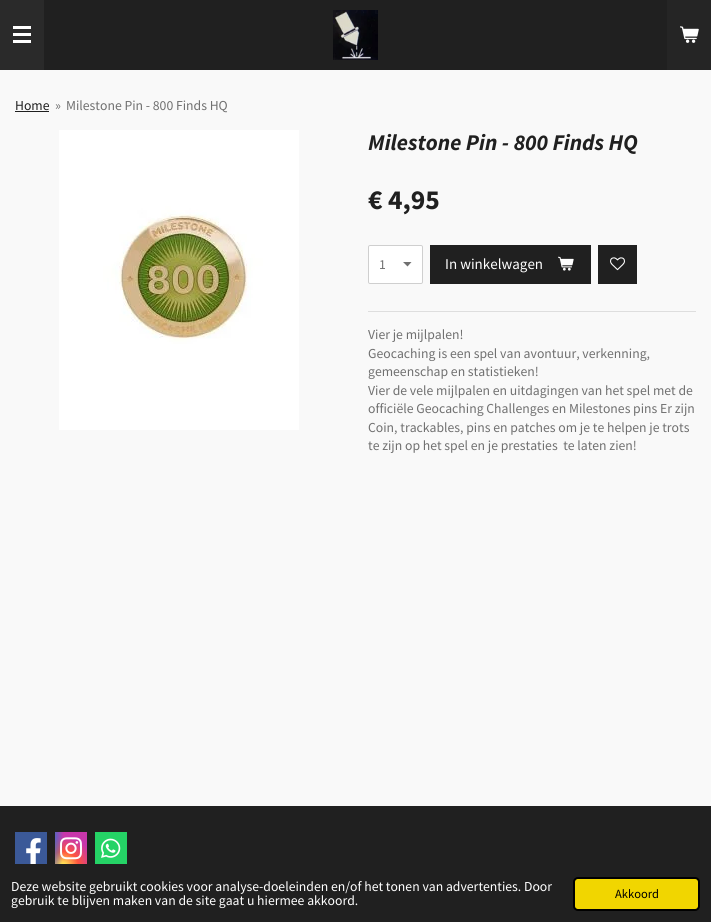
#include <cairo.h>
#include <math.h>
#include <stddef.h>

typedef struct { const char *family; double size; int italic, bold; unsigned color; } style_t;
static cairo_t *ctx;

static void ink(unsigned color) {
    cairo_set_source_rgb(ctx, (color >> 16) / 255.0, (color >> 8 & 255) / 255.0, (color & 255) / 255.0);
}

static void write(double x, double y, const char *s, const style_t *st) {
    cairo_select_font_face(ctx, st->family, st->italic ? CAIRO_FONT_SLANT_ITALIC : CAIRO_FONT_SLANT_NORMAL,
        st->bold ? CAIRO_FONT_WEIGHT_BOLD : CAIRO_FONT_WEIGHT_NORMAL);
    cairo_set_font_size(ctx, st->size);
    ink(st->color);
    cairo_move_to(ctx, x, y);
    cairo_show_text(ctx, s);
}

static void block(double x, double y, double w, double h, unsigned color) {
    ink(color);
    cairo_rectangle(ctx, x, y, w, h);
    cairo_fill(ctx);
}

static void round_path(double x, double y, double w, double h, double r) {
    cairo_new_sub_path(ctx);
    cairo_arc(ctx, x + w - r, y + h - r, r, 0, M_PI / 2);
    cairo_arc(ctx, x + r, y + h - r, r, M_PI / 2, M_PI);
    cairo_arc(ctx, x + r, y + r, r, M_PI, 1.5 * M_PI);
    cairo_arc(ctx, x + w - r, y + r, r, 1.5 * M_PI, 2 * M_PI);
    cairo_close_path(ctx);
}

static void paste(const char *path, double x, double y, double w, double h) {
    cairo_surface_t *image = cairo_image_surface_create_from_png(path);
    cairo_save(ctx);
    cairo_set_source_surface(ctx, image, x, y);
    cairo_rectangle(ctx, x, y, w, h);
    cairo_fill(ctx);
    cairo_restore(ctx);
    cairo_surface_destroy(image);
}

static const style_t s1 = {"Source Sans Pro", 13.7, 0, 0, 0x202020};
static const style_t s2 = {"Source Sans Pro", 13.7, 0, 0, 0x707070};
static const style_t s3 = {"Source Sans Pro", 22.5, 1, 1, 0x202020};
static const style_t s4 = {"Source Sans Pro", 27.5, 0, 1, 0x202020};
static const style_t s5 = {"Source Sans Pro", 15, 0, 0, 0xffffff};
static const style_t s6 = {"Source Sans Pro", 13.7, 0, 0, 0xffffff};
static const style_t s7 = {"Source Sans Pro", 12.5, 0, 0, 0x000000};

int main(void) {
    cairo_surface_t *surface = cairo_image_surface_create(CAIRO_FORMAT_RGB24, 711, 922);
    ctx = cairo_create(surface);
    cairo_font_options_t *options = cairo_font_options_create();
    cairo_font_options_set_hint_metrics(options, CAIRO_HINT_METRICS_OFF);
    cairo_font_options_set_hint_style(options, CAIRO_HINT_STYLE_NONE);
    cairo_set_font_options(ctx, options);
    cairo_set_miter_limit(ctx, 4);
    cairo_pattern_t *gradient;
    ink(0x202020);
    cairo_paint(ctx);
    block(0, 0, 44, 70, 0x2a2a2a);
    block(13, 33, 18, 3, 0xffffff);
    block(13, 26, 18, 3, 0xffffff);
    block(13, 40, 18, 3, 0xffffff);
    paste("pic1.png", 333, 10, 45, 50);
    block(667, 0, 44, 70, 0x252525);
    paste("pic2.png", 680, 26, 19, 17);
    block(0, 70, 711, 736, 0xf9f9f9);
    write(15, 110, "Home", &s1);
    block(15, 111, 34, 1, 0x202020);
    write(55, 110, "»", &s2);
    write(66, 110, "Milestone Pin - 800 Finds HQ", &s2);
    paste("pic3.png", 59, 130, 240, 300);
    write(368, 150, "Milestone Pin - 800 Finds HQ", &s3);
    write(368, 209, "€ 4,95", &s4);
    ink(0xffffff);
    round_path(368, 245, 55, 39, 2);
    cairo_fill(ctx);
    ink(0x707070);
    cairo_new_path(ctx);
    cairo_move_to(ctx, 407.5, 266.5);
    cairo_line_to(ctx, 403, 262);
    cairo_line_to(ctx, 411.5, 262);
    cairo_close_path(ctx);
    cairo_fill(ctx);
    round_path(368.5, 245.5, 54, 38, 1.5);
    ink(0xcfcfcf);
    cairo_set_line_width(ctx, 1);
    cairo_stroke(ctx);
    write(379, 269, "1", &s2);
    block(430, 245, 161, 39, 0x202020);
    write(445, 269, "In winkelwagen", &s5);
    paste("pic4.png", 558, 256, 16, 15);
    block(598, 245, 39, 39, 0x202020);
    paste("pic5.png", 610, 257, 15, 14);
    block(368, 311, 328, 1, 0xdedede);
    write(368, 339, "Vier je mijlpalen!", &s2);
    write(368, 358, "Geocaching is een spel van avontuur, verkenning,", &s2);
    write(368, 376, "gemeenschap en statistieken!", &s2);
    write(368, 395, "Vier de vele mijlpalen en uitdagingen van het spel met de", &s2);
    write(368, 413, "officiële Geocaching Challenges en Milestones pins Er zijn", &s2);
    write(368, 432, "Coin, trackables, pins en patches om je te helpen je trots", &s2);
    write(368, 450, "te zijn op het spel en je prestaties  te laten zien!", &s2);
    block(15, 832, 32, 32, 0x3b5998);
    paste("pic6.png", 26, 838, 15, 26);
    gradient = cairo_pattern_create_radial(0, 0, 0, 0, 0, 1);
    cairo_pattern_set_matrix(gradient, &(cairo_matrix_t){1.0 / 31, 0, 0, 1.0 / 29, -1.0 * 63 / 31, -1.0 * 866 / 29});
    cairo_pattern_add_color_stop_rgba(gradient, 0, 1, 0.867, 0.333, 1);
    cairo_pattern_add_color_stop_rgba(gradient, 0.1, 1, 0.867, 0.333, 1);
    cairo_pattern_add_color_stop_rgba(gradient, 0.5, 1, 0.329, 0.243, 1);
    cairo_pattern_add_color_stop_rgba(gradient, 1, 0.784, 0.216, 0.671, 1);
    cairo_set_source(ctx, gradient);
    cairo_pattern_destroy(gradient);
    cairo_rectangle(ctx, 55, 832, 32, 32);
    cairo_fill(ctx);
    gradient = cairo_pattern_create_radial(0, 0, 0, 0, 0, 1);
    cairo_pattern_set_matrix(gradient, &(cairo_matrix_t){1.0 / 14, 0, 0, 1.0 / 58, -1.0 * 50 / 14, -1.0 * 834 / 58});
    cairo_pattern_add_color_stop_rgba(gradient, 0, 0.216, 0.443, 0.784, 1);
    cairo_pattern_add_color_stop_rgba(gradient, 0.13, 0.216, 0.443, 0.784, 1);
    cairo_pattern_add_color_stop_rgba(gradient, 1, 0.216, 0.443, 0.784, 0);
    cairo_set_source(ctx, gradient);
    cairo_pattern_destroy(gradient);
    cairo_rectangle(ctx, 55, 832, 9, 32);
    cairo_fill(ctx);
    paste("pic7.png", 60, 837, 22, 23);
    block(95, 832, 32, 32, 0x25d366);
    paste("pic8.png", 101, 838, 20, 20);
    write(11, 891, "Deze website gebruikt cookies voor analyse-doeleinden en/of het tonen van advertenties. Door", &s6);
    write(11, 905, "gebruik te blijven maken van de site gaat u hiermee akkoord.", &s6);
    ink(0xf1d600);
    round_path(574, 878, 125, 32, 4);
    cairo_fill_preserve(ctx);
    ink(0x000000);
    cairo_set_line_width(ctx, 2);
    cairo_stroke(ctx);
    write(615, 898, "Akkoord", &s7);
    cairo_surface_write_to_png(surface, "screenshot.png");
    cairo_font_options_destroy(options);
    cairo_destroy(ctx);
    cairo_surface_destroy(surface);
    return 0;
}
